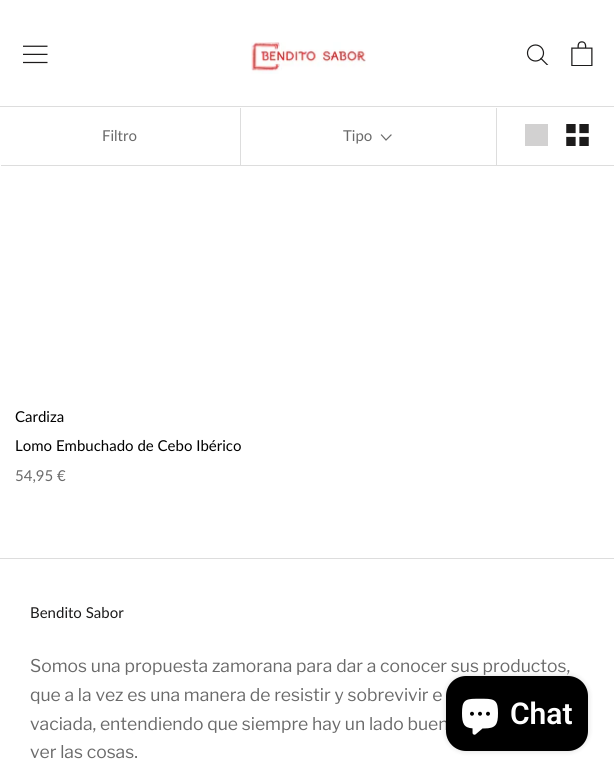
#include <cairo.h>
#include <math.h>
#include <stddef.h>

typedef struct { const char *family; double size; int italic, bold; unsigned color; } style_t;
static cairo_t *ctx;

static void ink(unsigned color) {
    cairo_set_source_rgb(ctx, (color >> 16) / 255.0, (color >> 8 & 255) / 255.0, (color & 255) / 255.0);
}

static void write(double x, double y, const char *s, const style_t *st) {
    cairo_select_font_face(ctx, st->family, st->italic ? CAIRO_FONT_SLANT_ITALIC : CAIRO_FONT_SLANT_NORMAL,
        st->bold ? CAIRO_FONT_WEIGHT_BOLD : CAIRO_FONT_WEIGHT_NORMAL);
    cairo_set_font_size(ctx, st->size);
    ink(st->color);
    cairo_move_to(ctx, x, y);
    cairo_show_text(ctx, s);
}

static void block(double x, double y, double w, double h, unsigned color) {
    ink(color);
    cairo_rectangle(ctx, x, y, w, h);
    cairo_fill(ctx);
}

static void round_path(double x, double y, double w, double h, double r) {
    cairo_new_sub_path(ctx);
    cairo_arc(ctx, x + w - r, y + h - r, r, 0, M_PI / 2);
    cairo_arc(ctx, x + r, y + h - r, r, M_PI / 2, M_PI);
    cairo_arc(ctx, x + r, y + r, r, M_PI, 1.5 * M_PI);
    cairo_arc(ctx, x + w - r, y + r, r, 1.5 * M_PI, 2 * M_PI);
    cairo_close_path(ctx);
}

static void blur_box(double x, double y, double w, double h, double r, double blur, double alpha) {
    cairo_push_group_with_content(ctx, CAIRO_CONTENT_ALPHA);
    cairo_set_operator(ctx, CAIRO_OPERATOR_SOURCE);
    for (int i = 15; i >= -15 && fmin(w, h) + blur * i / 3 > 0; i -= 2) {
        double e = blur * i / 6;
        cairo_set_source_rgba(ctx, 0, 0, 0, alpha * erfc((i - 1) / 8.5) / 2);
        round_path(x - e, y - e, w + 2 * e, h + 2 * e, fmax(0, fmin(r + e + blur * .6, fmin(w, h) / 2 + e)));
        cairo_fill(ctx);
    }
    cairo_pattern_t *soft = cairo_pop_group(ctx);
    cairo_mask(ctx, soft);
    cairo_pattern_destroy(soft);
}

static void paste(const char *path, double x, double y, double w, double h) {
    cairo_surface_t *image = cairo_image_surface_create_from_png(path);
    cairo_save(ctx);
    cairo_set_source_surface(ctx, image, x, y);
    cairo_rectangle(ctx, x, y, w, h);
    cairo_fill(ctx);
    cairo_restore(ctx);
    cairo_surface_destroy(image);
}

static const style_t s1 = {"Lato", 15, 0, 0, 0x6a6a6a};
static const style_t s2 = {"Lato", 15, 0, 0, 0x000000};
static const style_t s3 = {"Lato", 15, 0, 0, 0x1c1b1b};
static const style_t s4 = {"Libre Franklin", 17.5, 0, 0, 0x6a6a6a};
static const style_t s5 = {"Roboto SemiBold", 30, 0, 0, 0xffffff};

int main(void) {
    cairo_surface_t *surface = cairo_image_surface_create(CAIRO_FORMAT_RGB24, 614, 777);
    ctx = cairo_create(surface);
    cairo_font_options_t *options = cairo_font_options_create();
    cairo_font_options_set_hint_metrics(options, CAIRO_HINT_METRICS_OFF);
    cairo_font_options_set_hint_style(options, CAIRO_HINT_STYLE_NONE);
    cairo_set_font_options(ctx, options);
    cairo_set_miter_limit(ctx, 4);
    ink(0xffffff);
    cairo_paint(ctx);
    block(0, 106, 614, 1, 0xdddddd);
    paste("pic1.png", 23, 45, 25, 19);
    paste("pic2.png", 251, 42, 115, 32);
    cairo_save(ctx);
    cairo_rectangle(ctx, 526, 44, 23, 21);
    cairo_clip(ctx);
    cairo_new_path(ctx);
    cairo_move_to(ctx, 547.5, 65);
    cairo_line_to(ctx, 541, 58.5);
    ink(0x1c1b1b);
    cairo_set_line_width(ctx, 1.2);
    cairo_set_line_cap(ctx, CAIRO_LINE_CAP_SQUARE);
    cairo_stroke(ctx);
    cairo_restore(ctx);
    cairo_arc(ctx, 535.5, 53, 8, 0, 2 * M_PI);
    ink(0x1c1b1b);
    cairo_set_line_width(ctx, 1.2);
    cairo_stroke(ctx);
    paste("pic3.png", 571, 41, 22, 25);
    ink(0xdddddd);
    cairo_new_path(ctx);
    cairo_move_to(ctx, 1, 165);
    cairo_line_to(ctx, 1, 166);
    cairo_line_to(ctx, 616, 166);
    cairo_line_to(ctx, 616, 109);
    cairo_line_to(ctx, 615, 109);
    cairo_line_to(ctx, 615, 165);
    cairo_close_path(ctx);
    cairo_fill(ctx);
    write(102, 141, "Filtro", &s1);
    block(240, 108, 1, 57, 0xdddddd);
    write(343, 141, "Tipo", &s1);
    cairo_new_path(ctx);
    cairo_move_to(ctx, 391, 135);
    cairo_line_to(ctx, 386, 140);
    cairo_line_to(ctx, 381.5, 135);
    cairo_set_line_cap(ctx, CAIRO_LINE_CAP_SQUARE);
    cairo_stroke(ctx);
    block(496, 108, 1, 57, 0xdddddd);
    block(525, 124, 23, 22, 0xd2d1d1);
    paste("pic4.png", 566, 124, 23, 22);
    write(15, 422, "Cardiza", &s2);
    write(15, 451, "Lomo Embuchado de Cebo Ibérico", &s2);
    write(15, 481, "54,95 €", &s1);
    block(0, 558, 614, 1, 0xdddddd);
    write(30, 618, "Bendito Sabor", &s3);
    write(30, 672, "Somos una propuesta zamorana para dar a conocer sus productos,", &s4);
    write(30, 701, "que a la vez es una manera de resistir y sobrevivir e", &s4);
    write(30, 730, "vaciada, entendiendo que siempre hay un lado buen", &s4);
    write(30, 758, "ver las cosas.", &s4);
    ink(0x000000);
    blur_box(446, 676, 142, 75, 20, 3, 0.15);
    ink(0x000000);
    round_path(446, 676, 142, 75, 20);
    cairo_fill(ctx);
    paste("pic5.png", 462, 698, 36, 37);
    write(510, 724, "Chat", &s5);
    cairo_surface_write_to_png(surface, "screenshot.png");
    cairo_font_options_destroy(options);
    cairo_destroy(ctx);
    cairo_surface_destroy(surface);
    return 0;
}
